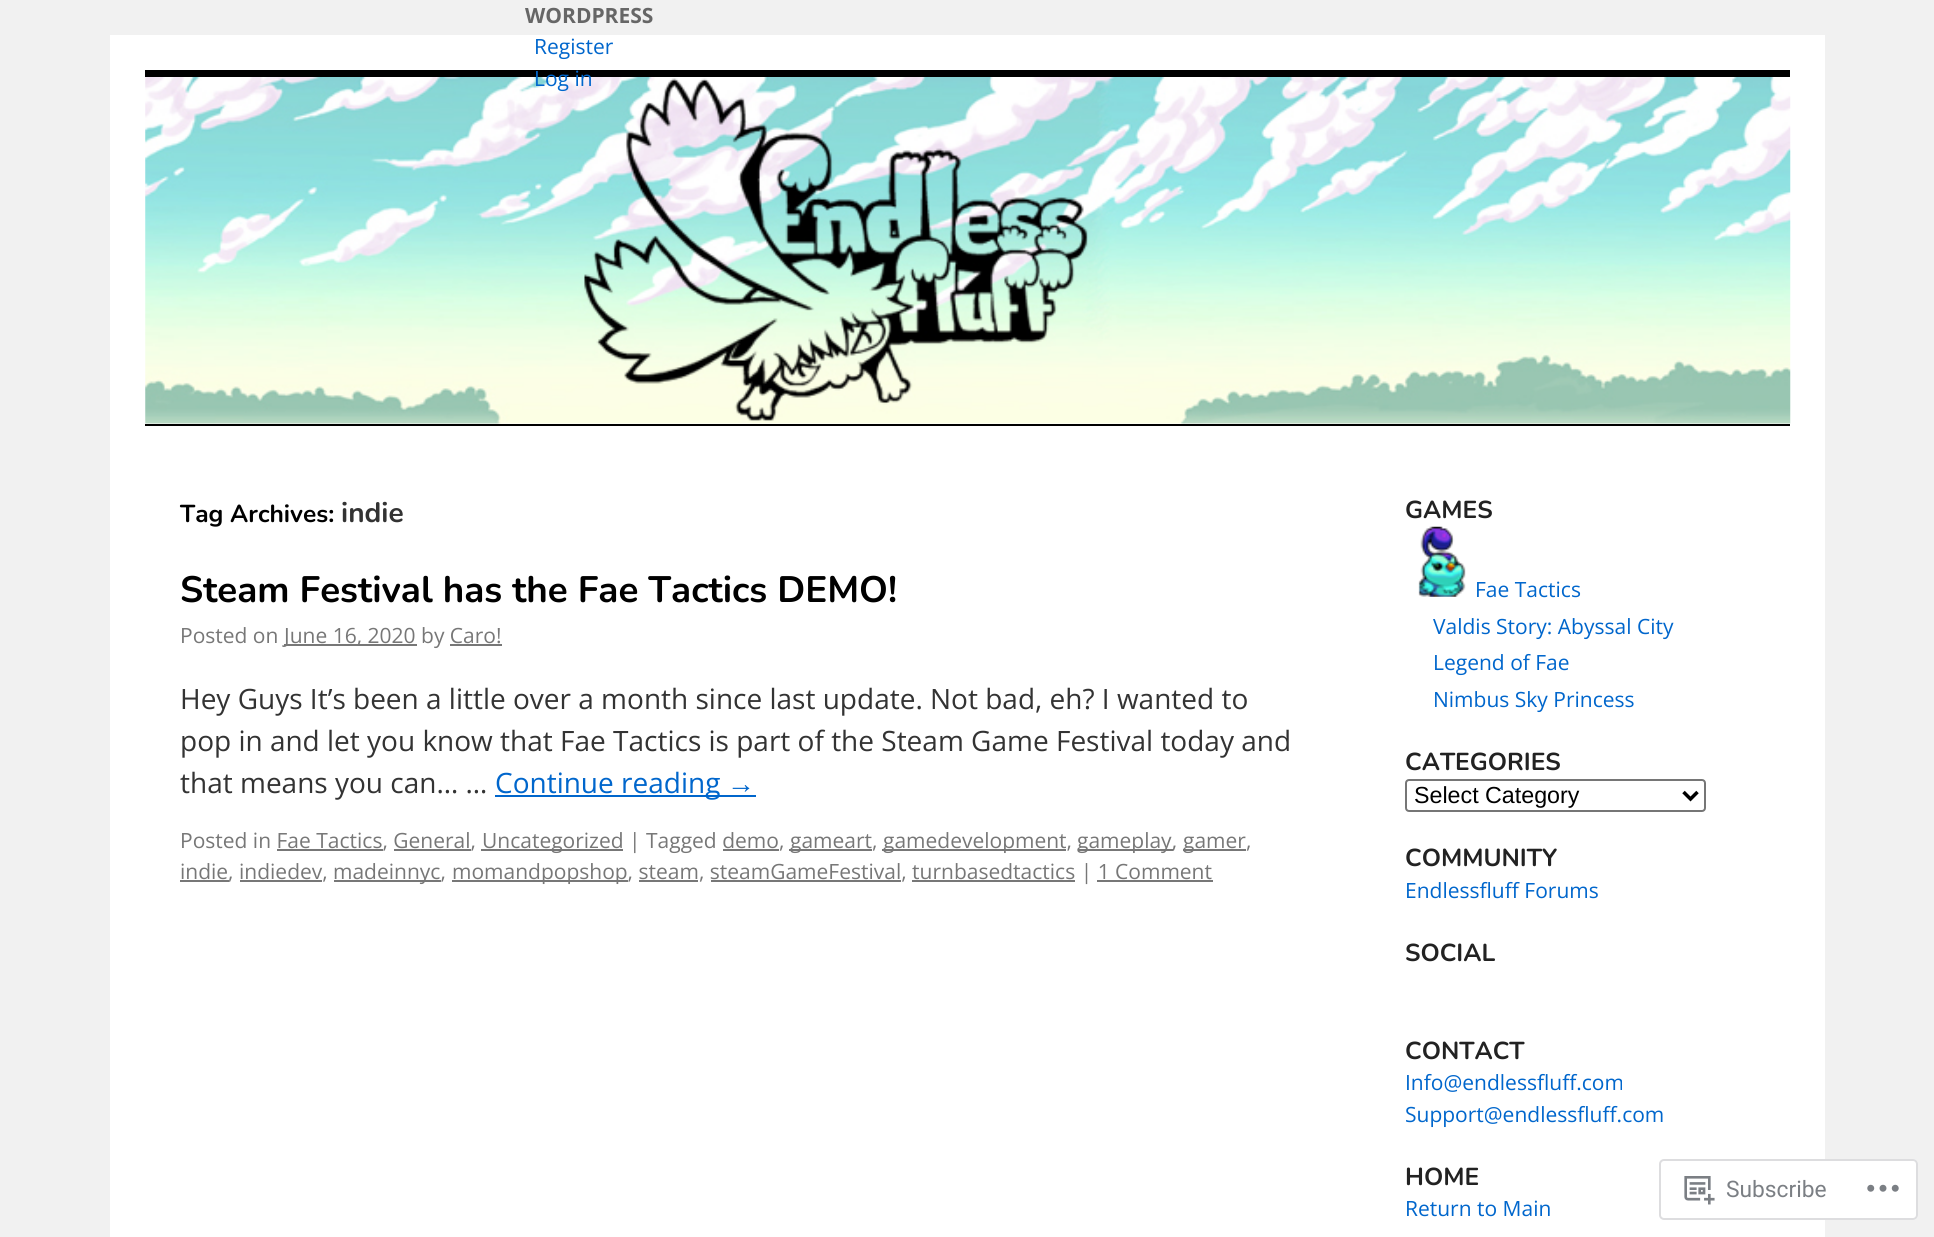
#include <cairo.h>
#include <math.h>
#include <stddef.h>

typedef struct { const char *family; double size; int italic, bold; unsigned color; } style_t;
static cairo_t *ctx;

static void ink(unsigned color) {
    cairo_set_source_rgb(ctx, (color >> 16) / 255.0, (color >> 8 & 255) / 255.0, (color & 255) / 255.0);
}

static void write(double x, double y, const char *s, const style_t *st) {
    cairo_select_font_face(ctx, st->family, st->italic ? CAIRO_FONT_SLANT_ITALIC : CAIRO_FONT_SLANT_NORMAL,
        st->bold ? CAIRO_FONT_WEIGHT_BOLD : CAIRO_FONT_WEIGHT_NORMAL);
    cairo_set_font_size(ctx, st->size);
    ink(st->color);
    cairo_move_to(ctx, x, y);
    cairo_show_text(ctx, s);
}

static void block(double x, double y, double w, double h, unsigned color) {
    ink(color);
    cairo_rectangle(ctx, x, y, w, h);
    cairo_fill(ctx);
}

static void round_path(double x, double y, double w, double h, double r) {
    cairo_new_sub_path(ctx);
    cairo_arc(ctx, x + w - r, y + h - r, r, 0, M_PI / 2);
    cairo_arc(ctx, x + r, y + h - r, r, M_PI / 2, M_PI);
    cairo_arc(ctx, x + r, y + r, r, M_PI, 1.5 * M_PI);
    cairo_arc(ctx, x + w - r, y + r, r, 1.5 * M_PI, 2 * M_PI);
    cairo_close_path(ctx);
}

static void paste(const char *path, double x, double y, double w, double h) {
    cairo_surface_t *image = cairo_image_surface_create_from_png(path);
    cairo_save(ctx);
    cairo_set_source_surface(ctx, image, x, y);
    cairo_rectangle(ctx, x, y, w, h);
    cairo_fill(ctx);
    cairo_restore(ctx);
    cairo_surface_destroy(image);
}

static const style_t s1 = {"Open Sans", 21, 0, 1, 0x666666};
static const style_t s2 = {"Open Sans", 21, 0, 0, 0x0066cc};
static const style_t s3 = {"Nunito ExtraLight", 24.5, 0, 0, 0x000000};
static const style_t s4 = {"Nunito ExtraLight", 28, 0, 0, 0x333333};
static const style_t s5 = {"Nunito ExtraLight", 36.75, 0, 0, 0x000000};
static const style_t s6 = {"Open Sans", 21, 0, 0, 0x777777};
static const style_t s7 = {"Open Sans", 28, 0, 0, 0x333333};
static const style_t s8 = {"Open Sans", 28, 0, 0, 0x0066cc};
static const style_t s9 = {"Liberation Sans", 28, 0, 0, 0x0066cc};
static const style_t s10 = {"Nunito ExtraLight", 24.5, 0, 0, 0x222222};
static const style_t s11 = {"Liberation Sans", 23.25, 0, 0, 0x000000};
static const style_t s12 = {"Roboto", 22.75, 0, 0, 0x7b7f84};

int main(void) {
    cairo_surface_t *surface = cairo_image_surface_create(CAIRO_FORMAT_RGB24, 1934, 1237);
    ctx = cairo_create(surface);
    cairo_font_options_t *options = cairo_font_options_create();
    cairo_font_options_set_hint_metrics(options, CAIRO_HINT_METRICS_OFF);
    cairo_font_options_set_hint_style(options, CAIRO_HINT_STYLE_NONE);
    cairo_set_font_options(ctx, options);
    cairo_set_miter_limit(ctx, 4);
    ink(0xf1f1f1);
    cairo_paint(ctx);
    block(110, 35, 1715, 1202, 0xffffff);
    write(525, 23, "WORDPRESS", &s1);
    write(534, 54, "Register", &s2);
    block(145, 70, 1645, 7, 0x000000);
    paste("pic1.png", 145, 77, 1646, 347);
    write(534, 86, "Log in", &s2);
    block(145, 424, 1645, 2, 0x000000);
    write(180, 522, "Tag Archives:", &s3);
    write(341, 522, "indie", &s4);
    write(180, 602, "Steam Festival has the Fae Tactics DEMO!", &s5);
    write(180, 643, "Posted on", &s6);
    block(284, 644, 133, 2, 0x777777);
    write(284, 643, "June 16, 2020 by Caro!", &s6);
    block(450, 644, 52, 2, 0x777777);
    write(180, 709, "Hey Guys It’s been a little over a month since last update. Not bad, eh? I wanted to", &s7);
    write(180, 751, "pop in and let you know that Fae Tactics is part of the Steam Game Festival today and", &s7);
    write(180, 793, "that means you can… …", &s7);
    block(495, 795, 261, 2, 0x0066cc);
    write(495, 793, "Continue reading", &s8);
    write(727, 793, "→", &s9);
    write(180, 848, "Posted in Fae Tactics, General,", &s6);
    block(277, 849, 106, 2, 0x777777);
    block(394, 849, 77, 2, 0x777777);
    block(481, 849, 142, 2, 0x777777);
    write(482, 848, "Uncategorized | Tagged demo,", &s6);
    block(789, 849, 83, 2, 0x777777);
    write(790, 848, "gameart,", &s6);
    block(723, 849, 56, 2, 0x777777);
    block(882, 849, 184, 2, 0x777777);
    write(883, 848, "gamedevelopment,", &s6);
    block(1078, 849, 95, 2, 0x777777);
    write(1077, 848, "gameplay,", &s6);
    block(1183, 849, 63, 2, 0x777777);
    write(1183, 848, "gamer,", &s6);
    block(180, 880, 49, 2, 0x777777);
    write(180, 879, "indie, indiedev,", &s6);
    block(240, 880, 82, 2, 0x777777);
    block(334, 880, 107, 2, 0x777777);
    write(333, 879, "madeinnyc,", &s6);
    block(452, 880, 176, 2, 0x777777);
    write(452, 879, "momandpopshop, steam, steamGameFestival, turnbasedtactics | 1 Comment", &s6);
    block(639, 880, 59, 2, 0x777777);
    block(711, 880, 190, 2, 0x777777);
    block(912, 880, 163, 2, 0x777777);
    block(1097, 880, 116, 2, 0x777777);
    write(1405, 518, "GAMES", &s10);
    paste("pic2.png", 1418, 526, 48, 71);
    write(1475, 597, "Fae Tactics", &s2);
    write(1433, 634, "Valdis Story: Abyssal City", &s2);
    write(1433, 670, "Legend of Fae", &s2);
    write(1433, 707, "Nimbus Sky Princess", &s2);
    write(1405, 770, "CATEGORIES", &s10);
    round_path(1406, 780, 299, 31, 3);
    ink(0x767676);
    cairo_stroke(ctx);
    cairo_new_path(ctx);
    cairo_move_to(ctx, 1683.5, 792);
    cairo_line_to(ctx, 1690.5, 799);
    cairo_line_to(ctx, 1697.5, 792);
    ink(0x000000);
    cairo_set_line_width(ctx, 3.5);
    cairo_stroke(ctx);
    write(1414, 803, "Select Category", &s11);
    write(1405, 866, "COMMUNITY", &s10);
    write(1405, 898, "Endlessfluff Forums", &s2);
    write(1405, 961, "SOCIAL", &s10);
    write(1405, 1059, "CONTACT", &s10);
    write(1405, 1090, "Info@endlessfluff.com", &s2);
    write(1405, 1122, "Support@endlessfluff.com", &s2);
    write(1405, 1185, "HOME", &s10);
    write(1405, 1216, "Return to Main", &s2);
    cairo_set_source_rgba(ctx, 1, 1, 1, 0.98);
    round_path(1659, 1159, 259, 61, 5);
    cairo_fill(ctx);
    round_path(1660, 1160, 257, 59, 4);
    cairo_set_source_rgba(ctx, 0.863, 0.863, 0.871, 0.98);
    cairo_set_line_width(ctx, 2);
    cairo_stroke(ctx);
    paste("pic3.png", 1684, 1176, 31, 29);
    write(1726, 1197, "Subscribe", &s12);
    paste("pic4.png", 1867, 1184, 32, 8);
    cairo_surface_write_to_png(surface, "screenshot.png");
    cairo_font_options_destroy(options);
    cairo_destroy(ctx);
    cairo_surface_destroy(surface);
    return 0;
}
